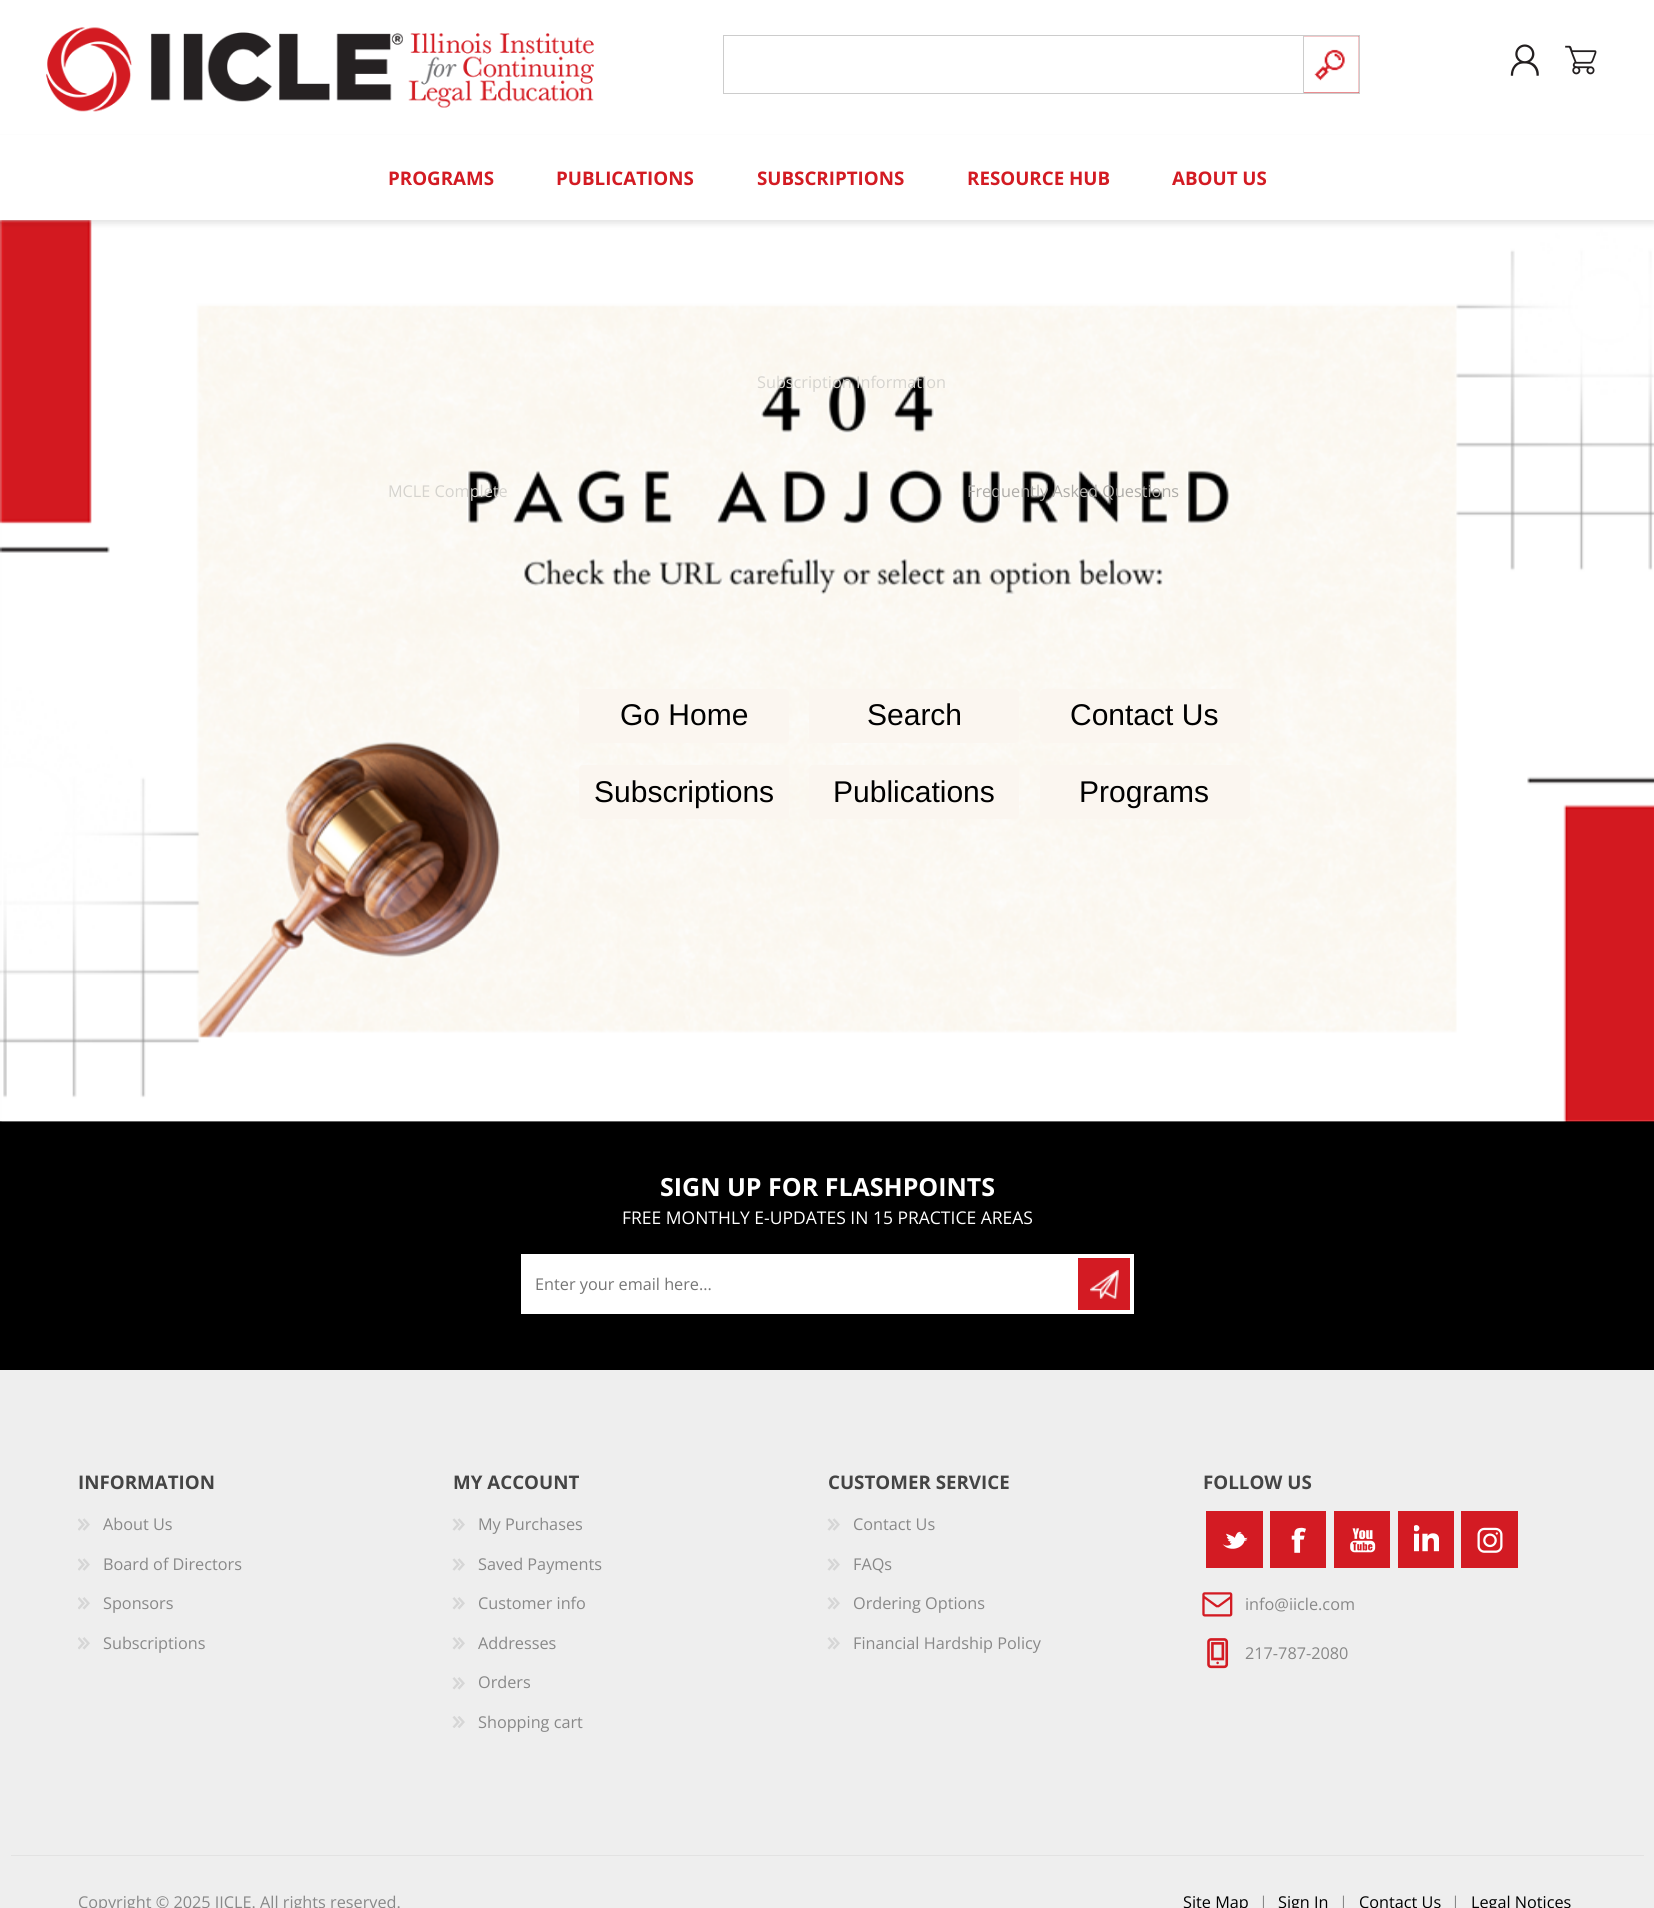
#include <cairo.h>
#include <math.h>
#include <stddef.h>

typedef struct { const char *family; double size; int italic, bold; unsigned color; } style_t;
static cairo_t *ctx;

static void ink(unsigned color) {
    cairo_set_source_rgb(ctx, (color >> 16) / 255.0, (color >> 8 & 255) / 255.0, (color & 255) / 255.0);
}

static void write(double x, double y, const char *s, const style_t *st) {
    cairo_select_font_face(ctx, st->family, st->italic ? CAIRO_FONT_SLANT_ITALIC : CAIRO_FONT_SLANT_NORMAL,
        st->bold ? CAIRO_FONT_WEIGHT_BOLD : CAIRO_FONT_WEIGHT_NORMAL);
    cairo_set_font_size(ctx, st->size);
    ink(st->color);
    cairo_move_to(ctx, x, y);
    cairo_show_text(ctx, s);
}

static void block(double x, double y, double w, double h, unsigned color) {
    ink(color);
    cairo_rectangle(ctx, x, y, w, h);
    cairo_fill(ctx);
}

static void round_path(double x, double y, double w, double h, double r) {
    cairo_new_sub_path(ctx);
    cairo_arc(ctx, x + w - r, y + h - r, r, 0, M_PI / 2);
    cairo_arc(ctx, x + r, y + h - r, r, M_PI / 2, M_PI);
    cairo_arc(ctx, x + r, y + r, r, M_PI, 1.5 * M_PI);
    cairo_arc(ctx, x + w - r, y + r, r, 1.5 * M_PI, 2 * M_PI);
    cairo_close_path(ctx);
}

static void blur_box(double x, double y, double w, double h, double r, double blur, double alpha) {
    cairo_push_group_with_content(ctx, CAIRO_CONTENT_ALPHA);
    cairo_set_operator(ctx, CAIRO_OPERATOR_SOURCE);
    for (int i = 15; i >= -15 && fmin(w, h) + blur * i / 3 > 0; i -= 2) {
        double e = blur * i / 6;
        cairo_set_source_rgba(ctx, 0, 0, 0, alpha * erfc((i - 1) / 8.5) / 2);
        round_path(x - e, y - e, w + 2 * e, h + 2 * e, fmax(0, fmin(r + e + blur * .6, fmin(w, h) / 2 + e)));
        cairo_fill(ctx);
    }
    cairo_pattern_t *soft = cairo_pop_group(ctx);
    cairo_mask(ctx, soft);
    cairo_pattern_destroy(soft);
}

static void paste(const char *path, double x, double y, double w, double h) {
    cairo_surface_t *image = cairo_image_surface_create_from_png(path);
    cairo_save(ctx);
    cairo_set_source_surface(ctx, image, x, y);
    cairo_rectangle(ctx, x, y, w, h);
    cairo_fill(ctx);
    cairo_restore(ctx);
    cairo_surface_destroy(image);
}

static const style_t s1 = {"Open Sans", 18.75, 0, 1, 0xd31b23};
static const style_t s2 = {"Open Sans", 16.25, 0, 0, 0xd5d3ce};
static const style_t s3 = {"Open Sans", 16.25, 0, 0, 0xadaba7};
static const style_t s4 = {"Liberation Sans", 30, 0, 0, 0x000000};
static const style_t s5 = {"Open Sans", 25, 0, 1, 0xffffff};
static const style_t s6 = {"Open Sans", 17.5, 0, 0, 0xffffff};
static const style_t s7 = {"Open Sans", 16.25, 0, 0, 0x757575};
static const style_t s8 = {"Open Sans", 18.75, 0, 1, 0x444444};
static const style_t s9 = {"Open Sans", 16.25, 0, 0, 0x888888};
static const style_t s10 = {"Open Sans", 16.25, 0, 0, 0x000000};

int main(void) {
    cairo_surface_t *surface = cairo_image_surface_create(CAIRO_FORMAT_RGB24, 1654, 1908);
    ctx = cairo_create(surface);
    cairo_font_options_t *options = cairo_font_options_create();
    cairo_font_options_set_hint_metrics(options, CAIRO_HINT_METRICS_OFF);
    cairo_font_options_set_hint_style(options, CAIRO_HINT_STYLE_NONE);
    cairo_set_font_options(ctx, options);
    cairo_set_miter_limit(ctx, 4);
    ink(0xffffff);
    cairo_paint(ctx);
    paste("pic1.png", 46, 27, 548, 85);
    cairo_rectangle(ctx, 723.5, 35.5, 636, 58);
    ink(0xcccccc);
    cairo_set_line_width(ctx, 1);
    cairo_stroke(ctx);
    block(1304, 36, 55, 57, 0xd31b23);
    paste("pic2.png", 1304, 36, 55, 57);
    block(1303, 36, 1, 57, 0xcccccc);
    paste("pic3.png", 1510, 44, 29, 32);
    paste("pic4.png", 1565, 45, 32, 30);
    block(0, 1121, 1654, 249, 0x000000);
    paste("pic5.png", 0, 220, 1654, 902);
    ink(0x000000);
    blur_box(0, 139, 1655, 85, 0, 3, 0.1);
    block(0, 135, 1654, 85, 0xffffff);
    write(388, 185, "PROGRAMS", &s1);
    write(388, 497, "MCLE Complete", &s2);
    write(556, 185, "PUBLICATIONS", &s1);
    write(757, 185, "SUBSCRIPTIONS", &s1);
    write(757, 388, "Subscription Information", &s2);
    write(967, 185, "RESOURCE HUB", &s1);
    write(967, 497, "Frequently Asked Questions", &s3);
    write(1172, 185, "ABOUT US", &s1);
    ink(0xfbf6f0);
    round_path(579, 689, 210, 54, 4);
    cairo_fill(ctx);
    write(620, 725, "Go Home", &s4);
    ink(0xfbf6f0);
    round_path(809, 689, 210, 54, 4);
    cairo_fill(ctx);
    write(867, 725, "Search", &s4);
    ink(0xfbf6f0);
    round_path(1040, 689, 210, 54, 4);
    cairo_fill(ctx);
    write(1070, 725, "Contact Us", &s4);
    ink(0xfbf6f0);
    round_path(579, 765, 210, 54, 4);
    cairo_fill(ctx);
    write(594, 802, "Subscriptions", &s4);
    ink(0xfbf6f0);
    round_path(809, 765, 210, 54, 4);
    cairo_fill(ctx);
    write(833, 802, "Publications", &s4);
    ink(0xfbf6f0);
    round_path(1040, 765, 210, 54, 4);
    cairo_fill(ctx);
    write(1079, 802, "Programs", &s4);
    block(0, 1370, 1654, 538, 0xeeeeee);
    write(660, 1196, "SIGN UP FOR FLASHPOINTS", &s5);
    write(622, 1224, "FREE MONTHLY E-UPDATES IN 15 PRACTICE AREAS", &s6);
    block(521, 1254, 613, 60, 0xffffff);
    write(535, 1290, "Enter your email here...", &s7);
    block(1078, 1258, 52, 52, 0xd31b23);
    paste("pic6.png", 1090, 1270, 29, 29);
    write(78, 1489, "INFORMATION", &s8);
    paste("pic7.png", 78, 1518, 12, 13);
    write(103, 1530, "About Us", &s9);
    paste("pic7.png", 78, 1558, 12, 13);
    write(103, 1570, "Board of Directors", &s9);
    paste("pic8.png", 78, 1597, 12, 13);
    write(103, 1609, "Sponsors", &s9);
    paste("pic8.png", 78, 1637, 12, 13);
    write(103, 1649, "Subscriptions", &s9);
    write(453, 1489, "MY ACCOUNT", &s8);
    paste("pic9.png", 452, 1518, 13, 13);
    write(478, 1530, "My Purchases", &s9);
    paste("pic9.png", 452, 1558, 13, 13);
    write(478, 1570, "Saved Payments", &s9);
    paste("pic10.png", 452, 1597, 13, 13);
    write(478, 1609, "Customer info", &s9);
    paste("pic10.png", 452, 1637, 13, 13);
    write(478, 1649, "Addresses", &s9);
    paste("pic10.png", 452, 1677, 13, 13);
    write(478, 1688, "Orders", &s9);
    paste("pic11.png", 452, 1716, 13, 12);
    write(478, 1728, "Shopping cart", &s9);
    write(828, 1489, "CUSTOMER SERVICE", &s8);
    paste("pic9.png", 827, 1518, 13, 13);
    write(853, 1530, "Contact Us", &s9);
    paste("pic9.png", 827, 1558, 13, 13);
    write(853, 1570, "FAQs", &s9);
    paste("pic10.png", 827, 1597, 13, 13);
    write(853, 1609, "Ordering Options", &s9);
    paste("pic10.png", 827, 1637, 13, 13);
    write(853, 1649, "Financial Hardship Policy", &s9);
    write(1203, 1489, "FOLLOW US", &s8);
    block(1206, 1511, 57, 57, 0xd31b23);
    paste("pic12.png", 1222, 1531, 26, 18);
    block(1270, 1511, 56, 57, 0xd31b23);
    paste("pic13.png", 1291, 1527, 15, 26);
    block(1334, 1511, 56, 57, 0xd31b23);
    paste("pic14.png", 1350, 1528, 26, 25);
    block(1398, 1511, 56, 57, 0xd31b23);
    paste("pic15.png", 1414, 1525, 25, 27);
    block(1461, 1511, 57, 57, 0xd31b23);
    paste("pic16.png", 1477, 1527, 26, 26);
    paste("pic17.png", 1202, 1592, 31, 25);
    write(1245, 1610, "info@iicle.com", &s9);
    paste("pic18.png", 1207, 1638, 22, 31);
    write(1245, 1659, "217-787-2080", &s9);
    block(11, 1855, 1633, 1, 0xe2e2e2);
    write(78, 1908, "Copyright © 2025 IICLE. All rights reserved.", &s9);
    write(1183, 1908, "Site Map", &s10);
    write(1259, 1908, "|", &s9);
    write(1278, 1908, "Sign In", &s10);
    write(1339, 1908, "|", &s9);
    write(1359, 1908, "Contact Us", &s10);
    write(1451, 1908, "|", &s9);
    write(1471, 1908, "Legal Notices", &s10);
    cairo_surface_write_to_png(surface, "screenshot.png");
    cairo_font_options_destroy(options);
    cairo_destroy(ctx);
    cairo_surface_destroy(surface);
    return 0;
}
